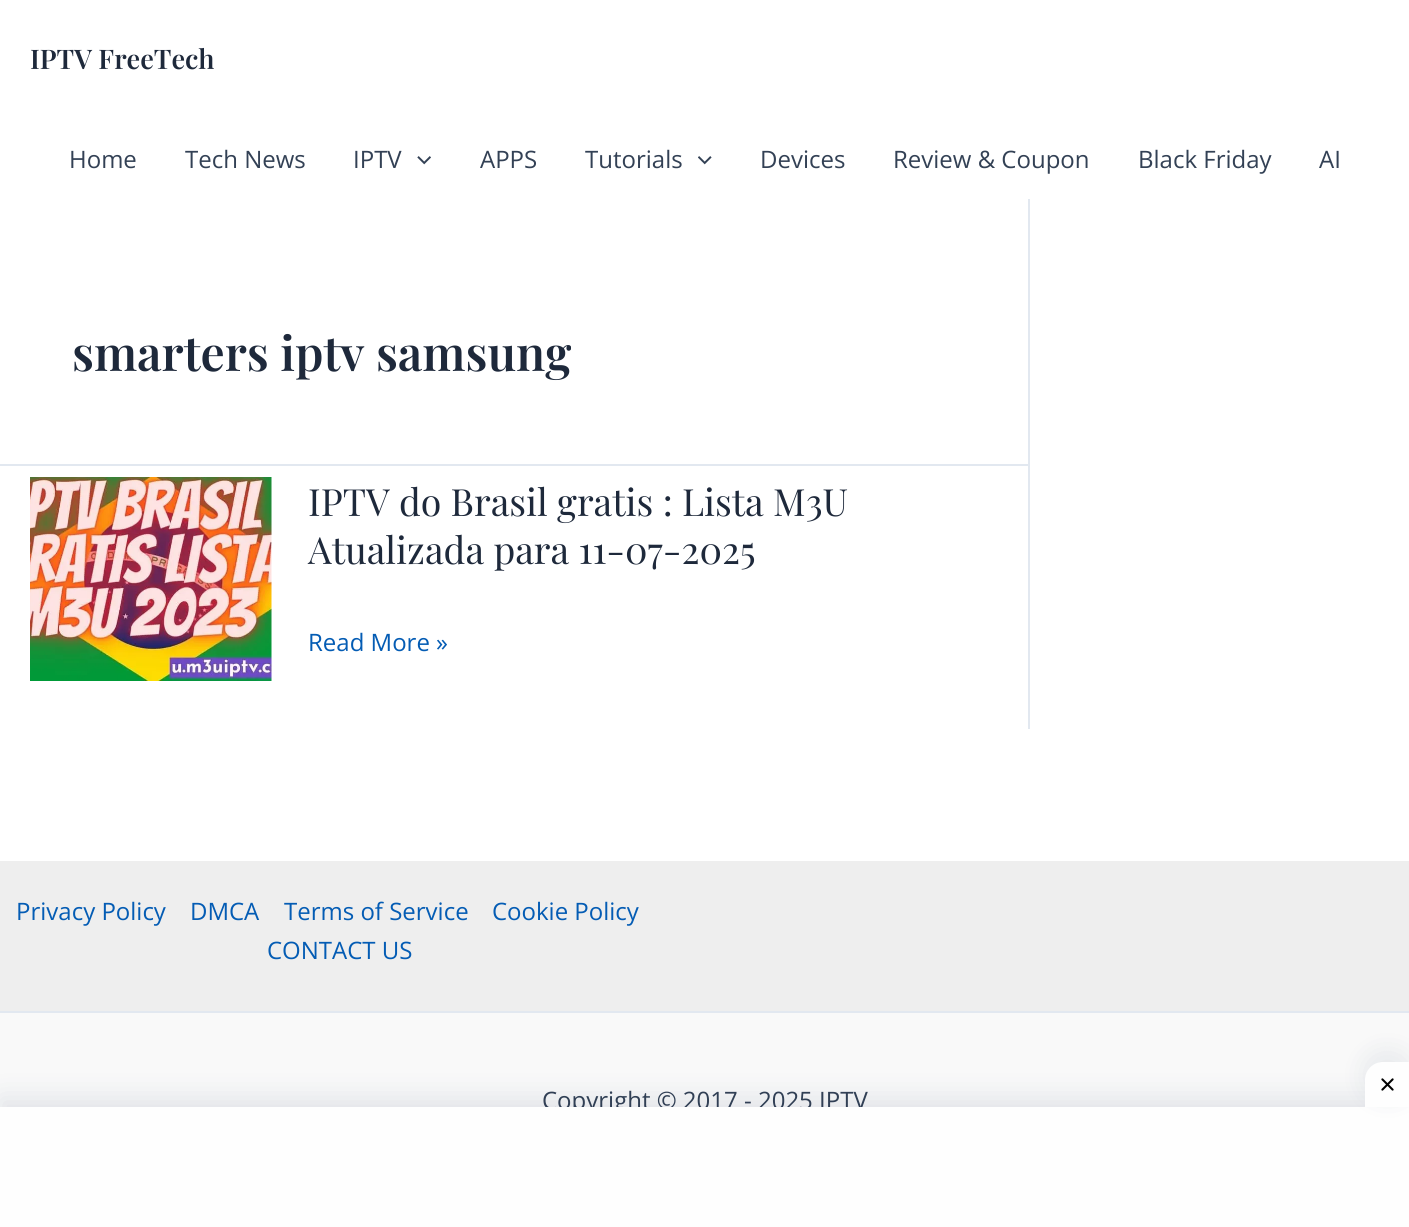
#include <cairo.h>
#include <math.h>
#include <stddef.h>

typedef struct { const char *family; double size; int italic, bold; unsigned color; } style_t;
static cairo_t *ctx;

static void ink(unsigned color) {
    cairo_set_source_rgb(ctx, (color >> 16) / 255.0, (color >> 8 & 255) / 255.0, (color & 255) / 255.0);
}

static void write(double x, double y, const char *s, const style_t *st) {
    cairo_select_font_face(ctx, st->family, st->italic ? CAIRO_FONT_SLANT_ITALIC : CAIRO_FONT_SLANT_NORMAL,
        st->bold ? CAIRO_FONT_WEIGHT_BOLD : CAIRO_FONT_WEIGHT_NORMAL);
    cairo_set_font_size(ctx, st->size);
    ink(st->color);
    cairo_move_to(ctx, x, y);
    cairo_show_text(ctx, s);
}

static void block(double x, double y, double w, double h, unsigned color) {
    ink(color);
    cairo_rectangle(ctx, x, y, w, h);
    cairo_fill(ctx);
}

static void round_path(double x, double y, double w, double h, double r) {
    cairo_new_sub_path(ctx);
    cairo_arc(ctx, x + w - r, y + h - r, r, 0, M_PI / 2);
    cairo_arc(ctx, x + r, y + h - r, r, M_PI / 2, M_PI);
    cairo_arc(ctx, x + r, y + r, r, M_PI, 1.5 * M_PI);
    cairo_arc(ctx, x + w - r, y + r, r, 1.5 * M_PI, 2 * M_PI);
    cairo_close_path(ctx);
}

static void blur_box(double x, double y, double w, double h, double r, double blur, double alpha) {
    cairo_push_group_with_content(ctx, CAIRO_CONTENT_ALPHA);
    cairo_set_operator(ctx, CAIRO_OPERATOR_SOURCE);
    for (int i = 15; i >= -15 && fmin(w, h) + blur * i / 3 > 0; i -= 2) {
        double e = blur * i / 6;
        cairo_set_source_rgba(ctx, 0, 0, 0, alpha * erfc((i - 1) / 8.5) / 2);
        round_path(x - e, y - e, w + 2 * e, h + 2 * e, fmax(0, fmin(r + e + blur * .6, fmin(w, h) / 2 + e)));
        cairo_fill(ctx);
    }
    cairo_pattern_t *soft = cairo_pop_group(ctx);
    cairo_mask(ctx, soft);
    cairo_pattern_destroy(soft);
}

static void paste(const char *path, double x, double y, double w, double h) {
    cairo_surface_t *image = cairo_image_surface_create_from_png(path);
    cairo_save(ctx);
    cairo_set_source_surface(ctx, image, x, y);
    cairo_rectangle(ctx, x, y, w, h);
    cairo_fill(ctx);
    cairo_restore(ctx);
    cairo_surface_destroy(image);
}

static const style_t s1 = {"Playfair Display SemiBold", 27, 0, 0, 0x1e293b};
static const style_t s2 = {"Open Sans", 24, 0, 0, 0x334155};
static const style_t s3 = {"Playfair Display SemiBold", 48, 0, 0, 0x1e293b};
static const style_t s4 = {"Playfair Display", 37.5, 0, 0, 0x1e293b};
static const style_t s5 = {"Open Sans", 24, 0, 0, 0x045cb4};

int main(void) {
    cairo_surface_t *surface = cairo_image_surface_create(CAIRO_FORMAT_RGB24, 1409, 1227);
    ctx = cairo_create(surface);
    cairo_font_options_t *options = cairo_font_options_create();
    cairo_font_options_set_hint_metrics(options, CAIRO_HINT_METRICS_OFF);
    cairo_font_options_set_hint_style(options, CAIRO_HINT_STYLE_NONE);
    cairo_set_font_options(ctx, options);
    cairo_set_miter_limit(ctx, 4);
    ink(0xffffff);
    cairo_paint(ctx);
    write(30, 69, "IPTV FreeTech", &s1);
    block(1028, 198, 2, 531, 0xe2e8f0);
    block(1028, 198, 2, 1, 0xffffff);
    write(69, 168, "Home", &s2);
    write(185, 168, "Tech News", &s2);
    write(353, 168, "IPTV", &s2);
    paste("pic1.png", 417, 156, 14, 9);
    write(480, 168, "APPS", &s2);
    write(585, 168, "Tutorials", &s2);
    paste("pic2.png", 698, 156, 14, 9);
    write(760, 168, "Devices", &s2);
    write(893, 168, "Review & Coupon", &s2);
    write(1138, 168, "Black Friday", &s2);
    write(1319, 168, "AI", &s2);
    block(0, 464, 1028, 2, 0xe2e8f0);
    write(72, 371, "smarters iptv samsung", &s3);
    paste("pic3.png", 30, 477, 242, 204);
    write(308, 516, "IPTV do Brasil gratis : Lista M3U", &s4);
    write(308, 564, "Atualizada para 11-07-2025", &s4);
    write(308, 651, "Read More »", &s5);
    block(0, 861, 1409, 150, 0xeeeeee);
    write(16, 920, "Privacy Policy", &s5);
    write(190, 920, "DMCA", &s5);
    write(284, 920, "Terms of Service", &s5);
    write(492, 920, "Cookie Policy", &s5);
    write(267, 959, "CONTACT US", &s5);
    block(0, 1013, 1409, 94, 0xf9f9f9);
    block(0, 1011, 1409, 2, 0xe2e8f0);
    write(542, 1109, "Copyright © 2017 - 2025 IPTV", &s2);
    ink(0x09204c);
    blur_box(0, 1098, 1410, 120, 0, 13.5, 0.1);
    block(0, 1107, 1409, 120, 0xfefefe);
    ink(0x09204c);
    blur_box(1365, 1053, 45, 45, 18, 13.5, 0.08);
    ink(0xfefefe);
    cairo_new_path(ctx);
    cairo_move_to(ctx, 1383, 1062);
    cairo_line_to(ctx, 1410, 1062);
    cairo_line_to(ctx, 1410, 1107);
    cairo_line_to(ctx, 1365, 1107);
    cairo_line_to(ctx, 1365, 1080);
    cairo_curve_to(ctx, 1365, 1070, 1373, 1062, 1383, 1062);
    cairo_close_path(ctx);
    cairo_fill(ctx);
    paste("pic4.png", 1381, 1078, 13, 13);
    cairo_surface_write_to_png(surface, "screenshot.png");
    cairo_font_options_destroy(options);
    cairo_destroy(ctx);
    cairo_surface_destroy(surface);
    return 0;
}
